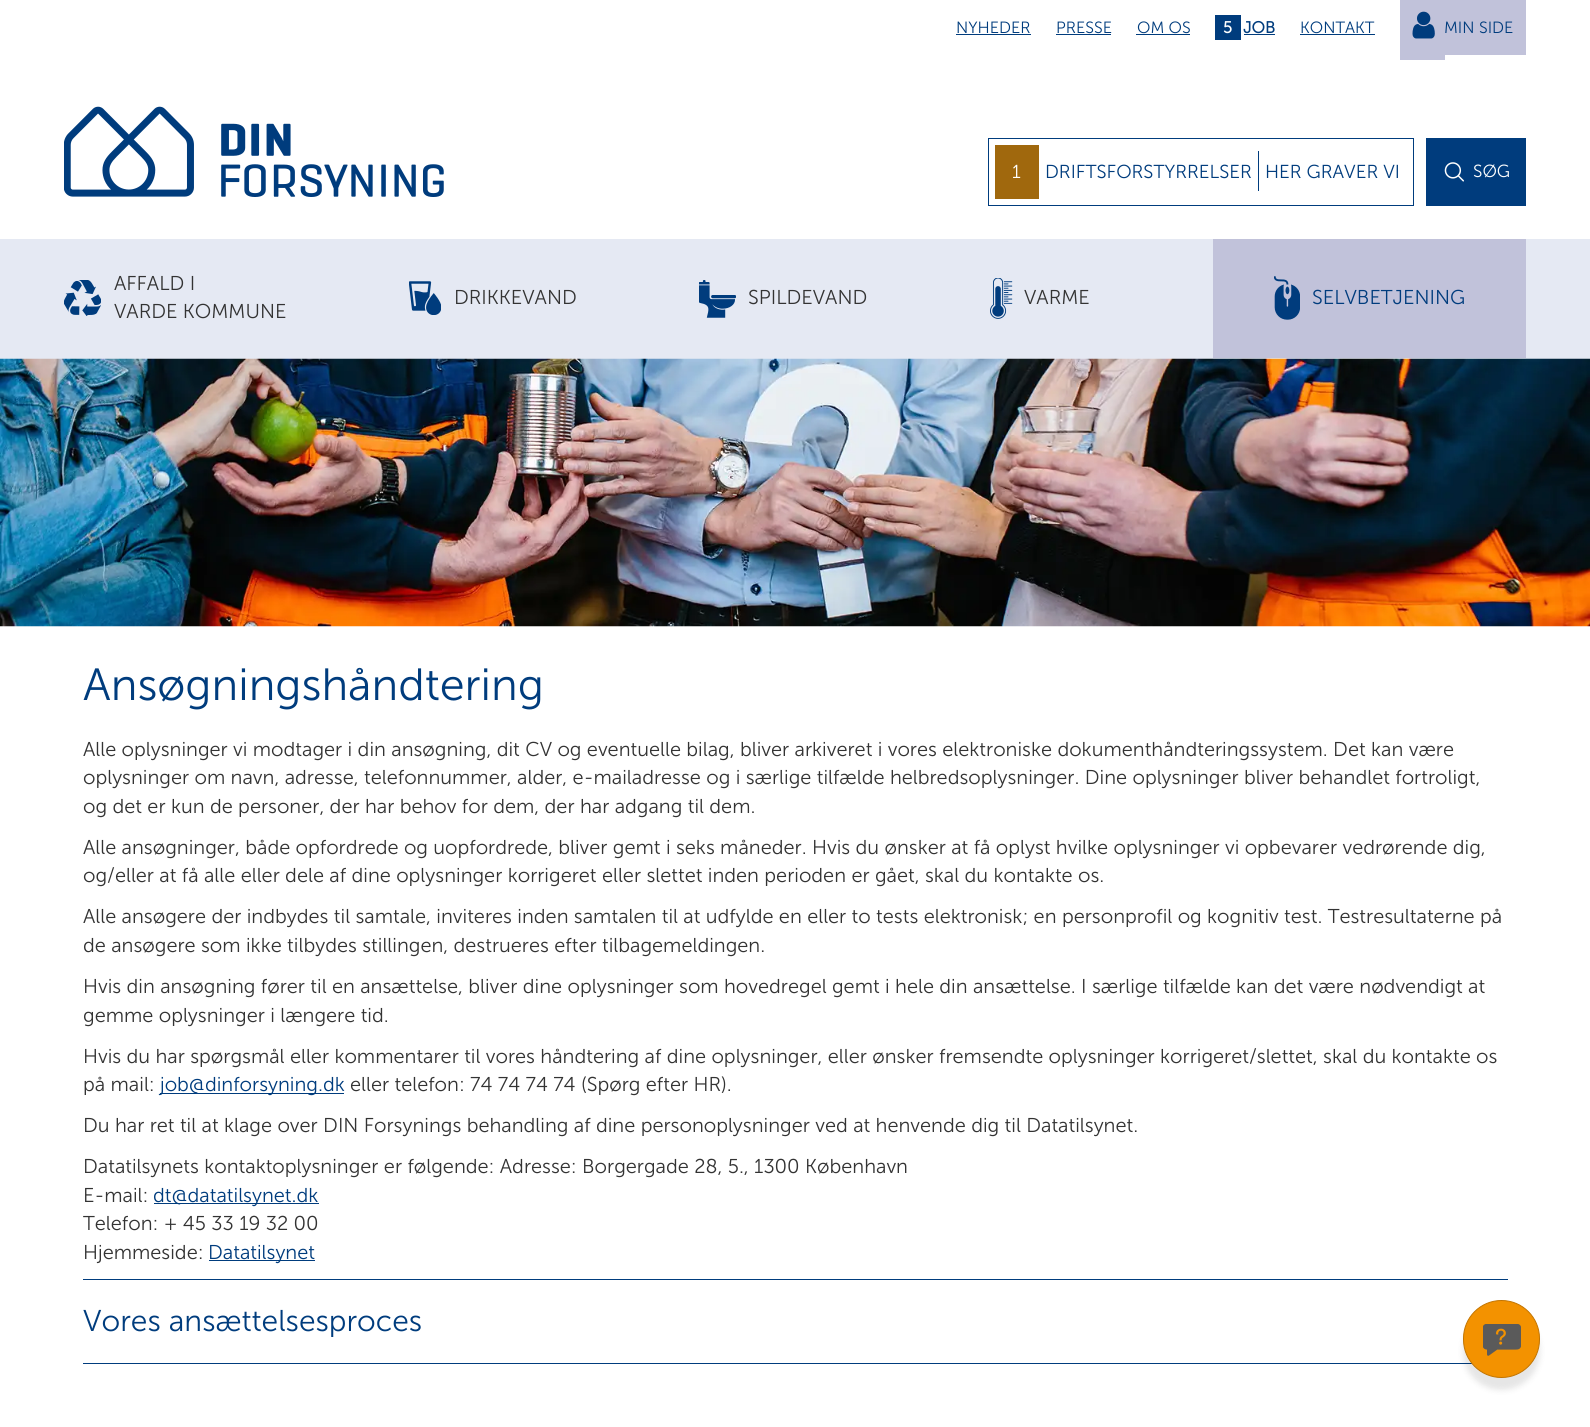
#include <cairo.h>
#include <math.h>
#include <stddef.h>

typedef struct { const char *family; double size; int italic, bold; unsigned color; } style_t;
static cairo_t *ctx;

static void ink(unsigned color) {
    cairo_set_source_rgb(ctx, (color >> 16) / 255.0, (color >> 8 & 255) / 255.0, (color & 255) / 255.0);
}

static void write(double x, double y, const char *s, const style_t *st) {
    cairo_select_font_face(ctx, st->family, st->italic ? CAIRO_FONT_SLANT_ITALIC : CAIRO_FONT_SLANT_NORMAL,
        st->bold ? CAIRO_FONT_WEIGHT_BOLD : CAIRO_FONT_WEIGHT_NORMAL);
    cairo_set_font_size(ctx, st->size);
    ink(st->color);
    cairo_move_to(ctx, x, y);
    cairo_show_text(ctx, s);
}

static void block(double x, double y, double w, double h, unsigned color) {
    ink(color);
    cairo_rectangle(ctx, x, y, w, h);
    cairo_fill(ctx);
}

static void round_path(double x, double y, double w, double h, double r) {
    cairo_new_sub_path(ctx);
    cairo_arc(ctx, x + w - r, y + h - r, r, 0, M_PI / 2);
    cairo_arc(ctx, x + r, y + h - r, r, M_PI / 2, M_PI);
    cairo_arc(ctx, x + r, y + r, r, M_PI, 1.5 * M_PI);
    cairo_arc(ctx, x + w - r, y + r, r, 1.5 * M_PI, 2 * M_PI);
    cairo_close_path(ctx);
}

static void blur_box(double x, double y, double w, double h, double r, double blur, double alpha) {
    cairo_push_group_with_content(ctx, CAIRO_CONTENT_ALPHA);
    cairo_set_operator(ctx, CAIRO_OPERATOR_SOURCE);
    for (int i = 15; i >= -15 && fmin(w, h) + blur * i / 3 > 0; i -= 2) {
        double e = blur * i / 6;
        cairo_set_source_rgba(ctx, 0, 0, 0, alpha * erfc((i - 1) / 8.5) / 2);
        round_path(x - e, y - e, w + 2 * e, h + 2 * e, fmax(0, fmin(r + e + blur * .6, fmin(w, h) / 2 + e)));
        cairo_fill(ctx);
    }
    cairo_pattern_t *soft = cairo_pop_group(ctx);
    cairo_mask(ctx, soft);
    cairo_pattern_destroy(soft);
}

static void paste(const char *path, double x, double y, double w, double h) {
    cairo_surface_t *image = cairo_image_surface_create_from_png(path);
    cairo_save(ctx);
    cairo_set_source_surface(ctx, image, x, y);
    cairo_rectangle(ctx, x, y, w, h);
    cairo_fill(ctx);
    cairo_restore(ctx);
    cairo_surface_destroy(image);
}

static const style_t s1 = {"Museo Sans Light", 16.25, 0, 0, 0x003c7d};
static const style_t s2 = {"Museo Sans", 16.25, 0, 1, 0xffffff};
static const style_t s3 = {"Museo Sans", 16.25, 0, 1, 0x003c7d};
static const style_t s4 = {"Museo Sans Light", 18.75, 0, 0, 0xffffff};
static const style_t s5 = {"Museo Sans Light", 18.75, 0, 0, 0x003c7d};
static const style_t s6 = {"Museo Sans Light", 17.5, 0, 0, 0xffffff};
static const style_t s7 = {"Museo Sans Light", 20, 0, 0, 0x333333};
static const style_t s8 = {"Museo Sans Light", 20, 0, 0, 0x003c7d};
static const style_t s9 = {"Museo Sans Light", 45, 0, 0, 0x003c7d};
static const style_t s10 = {"Museo Sans Light", 30, 0, 0, 0x003c7d};

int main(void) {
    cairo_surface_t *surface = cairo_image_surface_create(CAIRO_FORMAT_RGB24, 1590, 1427);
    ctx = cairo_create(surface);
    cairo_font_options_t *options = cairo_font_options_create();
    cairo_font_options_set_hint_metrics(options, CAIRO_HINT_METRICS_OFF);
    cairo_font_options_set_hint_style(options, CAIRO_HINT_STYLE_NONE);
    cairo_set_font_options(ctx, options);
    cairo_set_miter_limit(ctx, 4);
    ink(0xffffff);
    cairo_paint(ctx);
    write(956, 33, "NYHEDER", &s1);
    block(956, 34, 75, 1, 0x003c7d);
    write(1056, 33, "PRESSE", &s1);
    block(1056, 34, 55, 1, 0x003c7d);
    write(1137, 33, "OM OS", &s1);
    block(1136, 34, 54, 1, 0x003c7d);
    block(1215, 15, 26, 25, 0x003c7d);
    write(1223, 33, "5", &s2);
    write(1243, 33, "JOB", &s3);
    block(1244, 34, 31, 1, 0x003c7d);
    write(1300, 33, "KONTAKT", &s1);
    block(1300, 34, 75, 1, 0x003c7d);
    block(1400, 0, 45, 60, 0xc1c2da);
    paste("pic1.png", 1412, 11, 23, 28);
    block(1445, 0, 81, 55, 0xc1c2da);
    write(1444, 33, "MIN SIDE", &s1);
    paste("pic2.png", 64, 106, 380, 91);
    cairo_rectangle(ctx, 988.5, 138.5, 425, 67);
    cairo_set_line_width(ctx, 1);
    cairo_stroke(ctx);
    block(995, 145, 44, 54, 0xa0680d);
    write(1012, 178, "1", &s4);
    write(1045, 178, "DRIFTSFORSTYRRELSER", &s5);
    block(1258, 151, 1, 40, 0x003c7d);
    write(1265, 178, "HER GRAVER VI", &s5);
    block(1426, 138, 100, 68, 0x003c7d);
    paste("pic3.png", 1444, 162, 20, 20);
    write(1473, 177, "SØG", &s6);
    block(0, 239, 1590, 120, 0xe5e9f3);
    paste("pic4.png", 64, 280, 37, 36);
    write(114, 290, "AFFALD I", &s7);
    write(114, 318, "VARDE KOMMUNE", &s7);
    paste("pic5.png", 409, 281, 32, 34);
    write(454, 304, "DRIKKEVAND", &s7);
    paste("pic6.png", 699, 280, 37, 38);
    write(748, 304, "SPILDEVAND", &s7);
    paste("pic7.png", 990, 278, 23, 41);
    write(1024, 304, "VARME", &s7);
    block(1213, 239, 313, 119, 0xc1c2da);
    paste("pic8.png", 1274, 276, 26, 44);
    write(1312, 304, "SELVBETJENING", &s8);
    paste("pic9.png", 0, 358, 1590, 269);
    write(83, 700, "Ansøgningshåndtering", &s9);
    write(83, 756, "Alle oplysninger vi modtager i din ansøgning, dit CV og eventuelle bilag, bliver arkiveret i vores elektroniske dokumenthåndteringssystem. Det kan være", &s7);
    write(83, 784, "oplysninger om navn, adresse, telefonnummer, alder, e-mailadresse og i særlige tilfælde helbredsoplysninger. Dine oplysninger bliver behandlet fortroligt,", &s7);
    write(83, 813, "og det er kun de personer, der har behov for dem, der har adgang til dem.", &s7);
    write(83, 854, "Alle ansøgninger, både opfordrede og uopfordrede, bliver gemt i seks måneder. Hvis du ønsker at få oplyst hvilke oplysninger vi opbevarer vedrørende dig,", &s7);
    write(83, 882, "og/eller at få alle eller dele af dine oplysninger korrigeret eller slettet inden perioden er gået, skal du kontakte os.", &s7);
    write(83, 923, "Alle ansøgere der indbydes til samtale, inviteres inden samtalen til at udfylde en eller to tests elektronisk; en personprofil og kognitiv test. Testresultaterne på", &s7);
    write(83, 952, "de ansøgere som ikke tilbydes stillingen, destrueres efter tilbagemeldingen.", &s7);
    write(83, 993, "Hvis din ansøgning fører til en ansættelse, bliver dine oplysninger som hovedregel gemt i hele din ansættelse. I særlige tilfælde kan det være nødvendigt at", &s7);
    write(83, 1022, "gemme oplysninger i længere tid.", &s7);
    write(83, 1063, "Hvis du har spørgsmål eller kommentarer til vores håndtering af dine oplysninger, eller ønsker fremsendte oplysninger korrigeret/slettet, skal du kontakte os", &s7);
    write(83, 1091, "på mail:", &s7);
    block(160, 1093, 184, 1, 0x003c7d);
    write(160, 1091, "job@dinforsyning.dk", &s8);
    write(350, 1091, "eller telefon: 74 74 74 74 (Spørg efter HR).", &s7);
    write(83, 1132, "Du har ret til at klage over DIN Forsynings behandling af dine personoplysninger ved at henvende dig til Datatilsynet.", &s7);
    write(83, 1173, "Datatilsynets kontaktoplysninger er følgende: Adresse: Borgergade 28, 5., 1300 København", &s7);
    write(83, 1202, "E-mail:", &s7);
    block(154, 1203, 165, 1, 0x003c7d);
    write(153, 1202, "dt@datatilsynet.dk", &s8);
    write(83, 1230, "Telefon: + 45 33 19 32 00", &s7);
    write(83, 1259, "Hjemmeside:", &s7);
    block(209, 1260, 106, 1, 0x003c7d);
    write(208, 1259, "Datatilsynet", &s8);
    block(83, 1279, 1425, 1, 0x003c7d);
    block(83, 1363, 1389, 1, 0x003c7d);
    write(83, 1331, "Vores ansættelsesproces", &s10);
    ink(0x000000);
    blur_box(1463, 1313, 77, 77, 38.5, 3, 0.1);
    ink(0xf39200);
    round_path(1463.5, 1300.5, 76, 77, 38);
    cairo_fill_preserve(ctx);
    ink(0xc27400);
    cairo_stroke(ctx);
    paste("pic10.png", 1483, 1324, 38, 32);
    cairo_surface_write_to_png(surface, "screenshot.png");
    cairo_font_options_destroy(options);
    cairo_destroy(ctx);
    cairo_surface_destroy(surface);
    return 0;
}
